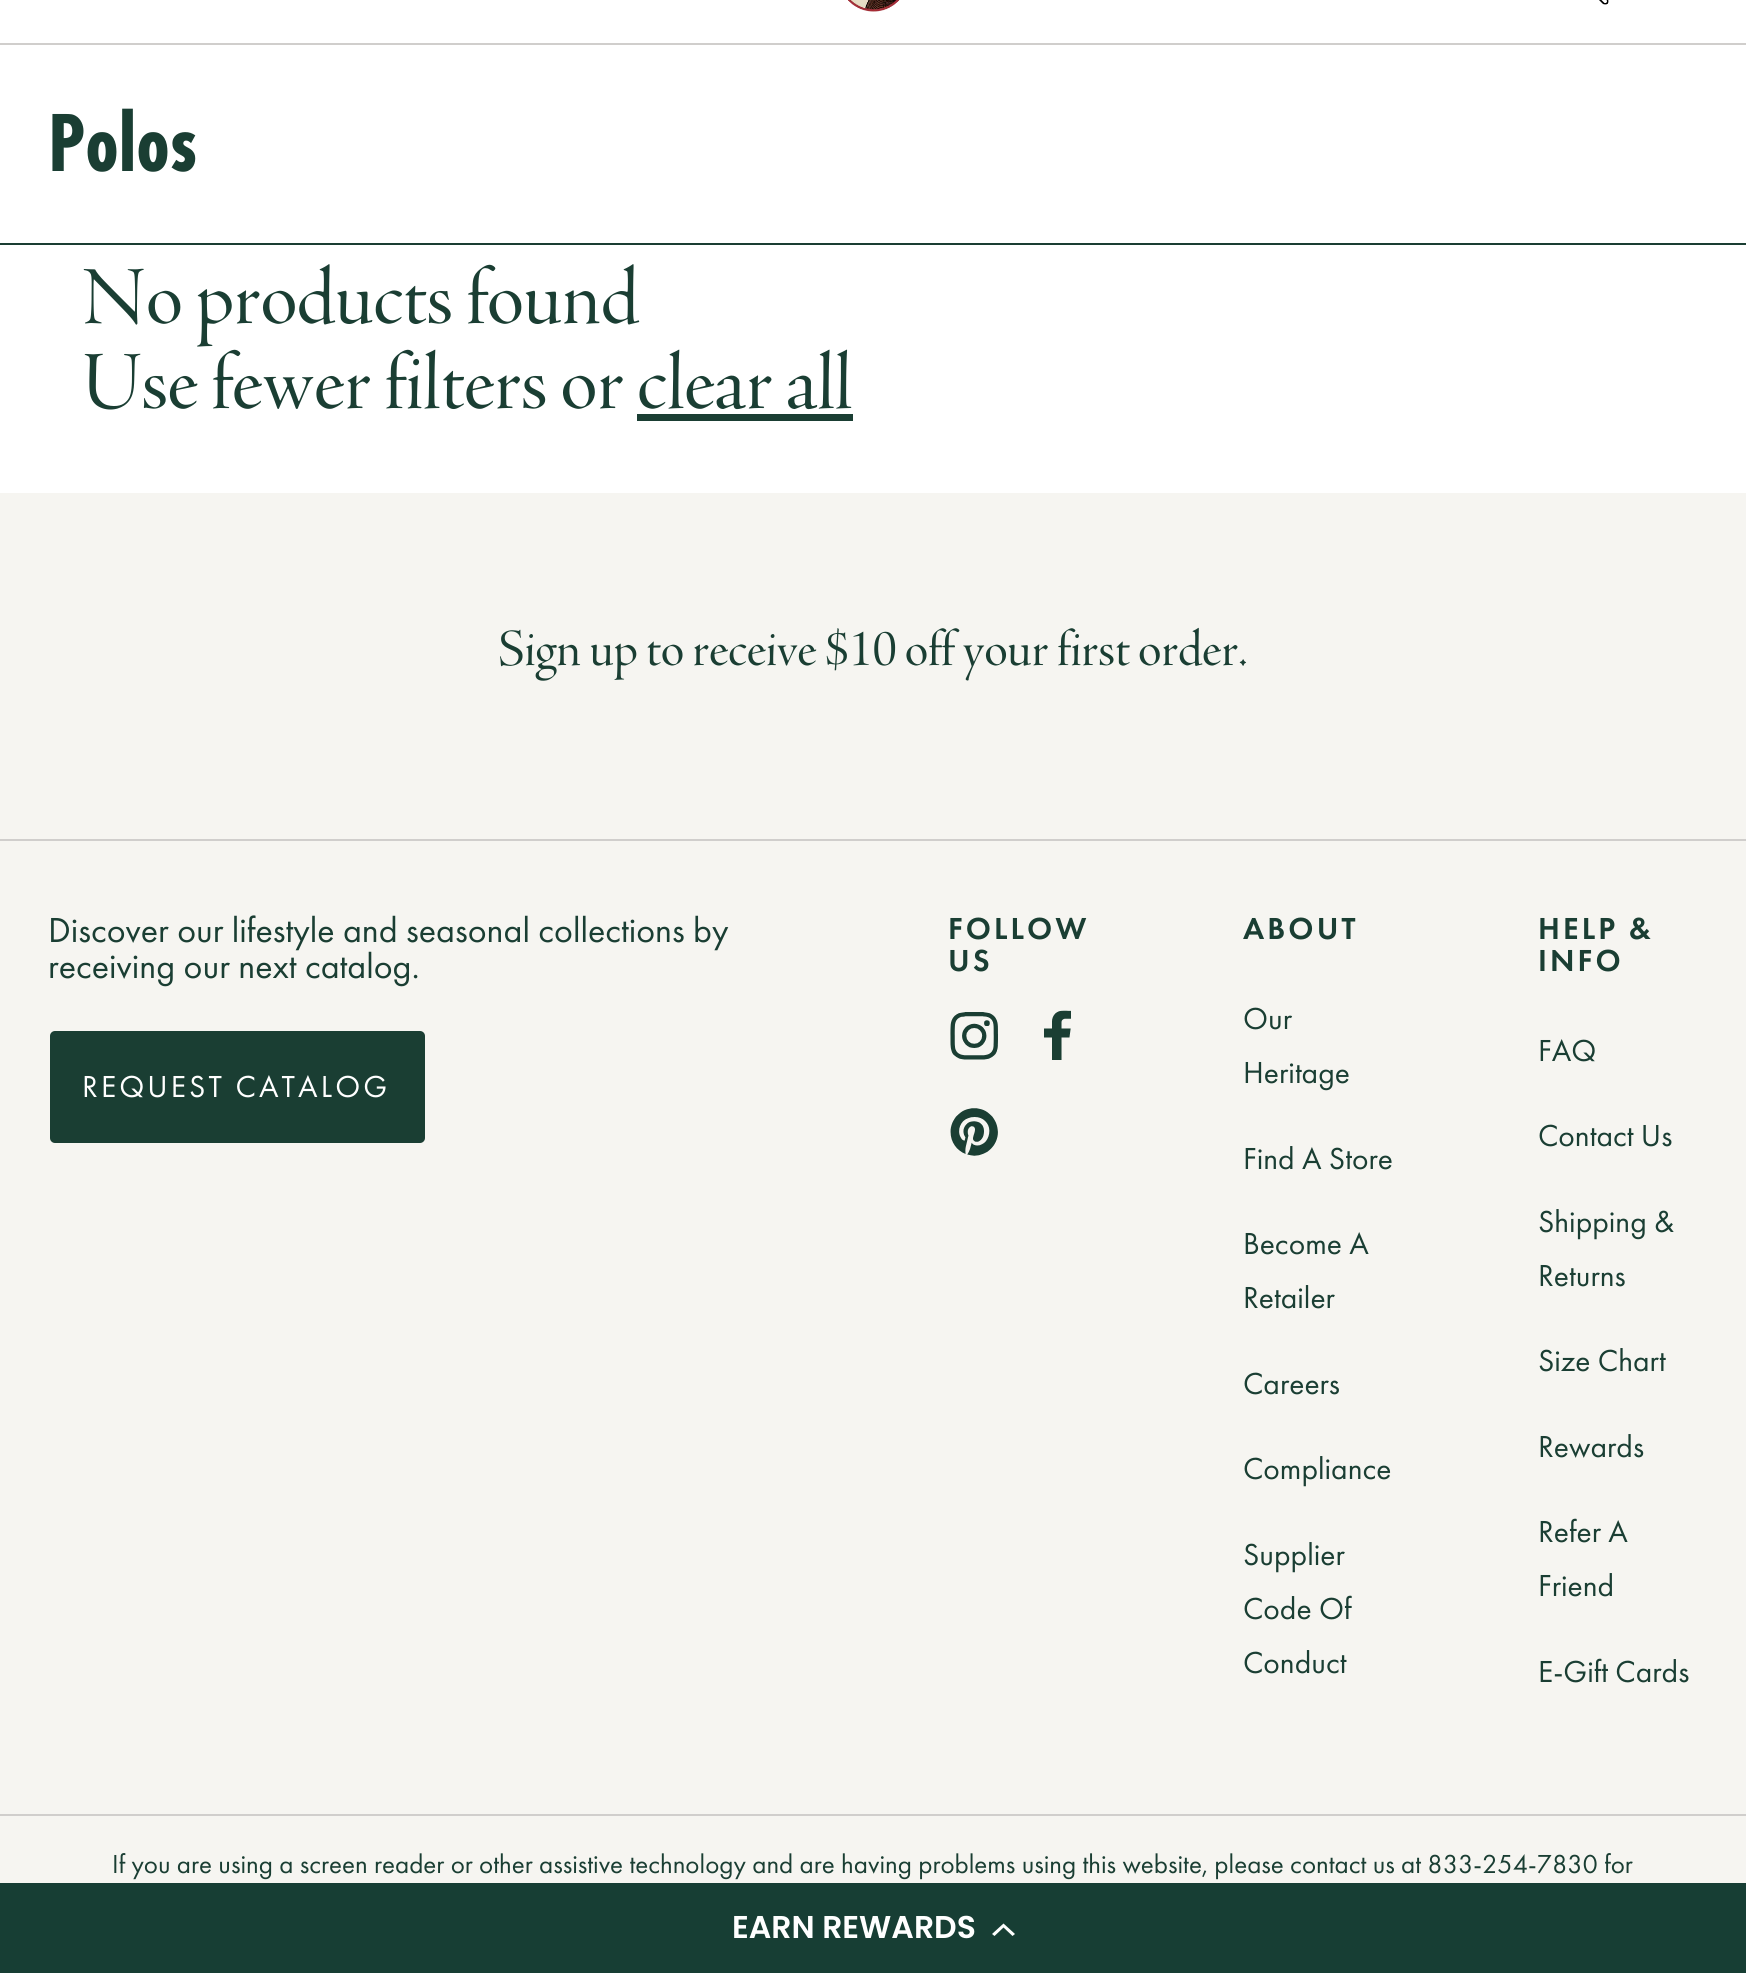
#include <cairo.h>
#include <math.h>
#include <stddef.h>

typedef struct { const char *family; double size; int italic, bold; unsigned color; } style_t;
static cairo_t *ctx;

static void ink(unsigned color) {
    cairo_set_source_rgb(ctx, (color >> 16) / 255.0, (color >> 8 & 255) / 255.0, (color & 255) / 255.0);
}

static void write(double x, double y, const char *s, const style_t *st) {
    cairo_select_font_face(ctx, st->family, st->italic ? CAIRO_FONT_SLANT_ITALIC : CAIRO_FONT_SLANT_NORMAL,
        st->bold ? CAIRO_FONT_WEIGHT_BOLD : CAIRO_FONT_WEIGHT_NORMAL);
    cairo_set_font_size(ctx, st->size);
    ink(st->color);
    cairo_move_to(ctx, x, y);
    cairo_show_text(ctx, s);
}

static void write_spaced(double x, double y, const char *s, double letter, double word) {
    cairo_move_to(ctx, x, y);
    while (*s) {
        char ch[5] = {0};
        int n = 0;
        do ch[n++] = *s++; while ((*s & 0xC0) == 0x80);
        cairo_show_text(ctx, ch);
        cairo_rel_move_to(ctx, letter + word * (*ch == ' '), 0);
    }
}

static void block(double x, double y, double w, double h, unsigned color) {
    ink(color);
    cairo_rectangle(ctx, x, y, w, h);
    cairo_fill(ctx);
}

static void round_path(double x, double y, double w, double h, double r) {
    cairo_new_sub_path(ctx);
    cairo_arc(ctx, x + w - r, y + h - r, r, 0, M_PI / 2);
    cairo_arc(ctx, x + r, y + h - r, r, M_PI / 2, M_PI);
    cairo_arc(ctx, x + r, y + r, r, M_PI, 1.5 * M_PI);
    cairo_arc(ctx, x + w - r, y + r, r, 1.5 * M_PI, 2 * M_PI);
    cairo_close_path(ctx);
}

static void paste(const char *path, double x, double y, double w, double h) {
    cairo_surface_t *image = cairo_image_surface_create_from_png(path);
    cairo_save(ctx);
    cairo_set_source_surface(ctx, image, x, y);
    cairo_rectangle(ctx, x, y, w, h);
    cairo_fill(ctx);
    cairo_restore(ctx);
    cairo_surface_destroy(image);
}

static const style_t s1 = {"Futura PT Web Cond", 85.5, 0, 1, 0x1a3e33};
static const style_t s2 = {"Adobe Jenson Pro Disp", 85.5, 0, 0, 0x1a3e33};
static const style_t s3 = {"Adobe Jenson Pro Disp", 54, 0, 0, 0x1a3e33};
static const style_t s4 = {"Futura PT", 36, 0, 0, 0x1a3e33};
static const style_t s5 = {"Futura PT", 31.5, 0, 0, 0x1a3e33};
static const style_t s6 = {"Futura PT", 27, 0, 0, 0x1a3e33};
static const style_t s7 = {"Poppins SemiBold", 31.5, 0, 0, 0xffffff};

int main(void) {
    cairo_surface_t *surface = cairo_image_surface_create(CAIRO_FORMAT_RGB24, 1746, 1973);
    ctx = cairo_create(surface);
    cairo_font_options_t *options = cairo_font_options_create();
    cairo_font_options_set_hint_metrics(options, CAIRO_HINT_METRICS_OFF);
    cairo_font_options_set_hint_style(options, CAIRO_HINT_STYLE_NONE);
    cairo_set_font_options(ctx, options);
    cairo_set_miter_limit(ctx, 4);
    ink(0xffffff);
    cairo_paint(ctx);
    block(0, 43, 1746, 2, 0xd0cecc);
    paste("pic1.png", 848, 0, 52, 12);
    paste("pic2.png", 1599, 0, 10, 5);
    block(0, 243, 1746, 2, 0x1a3e33);
    write(48, 171, "Polos", &s1);
    write(82, 323, "No products found", &s2);
    write(82, 408, "Use fewer filters or clear all", &s2);
    block(637, 414, 216, 7, 0x1a3e33);
    block(0, 493, 1746, 1390, 0xf6f5f1);
    write(498, 665, "Sign up to receive $10 off your first order.", &s3);
    block(0, 839, 1746, 2, 0xd0cecc);
    write(48, 942, "Discover our lifestyle and seasonal collections by", &s4);
    write(48, 978, "receiving our next catalog.", &s4);
    round_path(50, 1031, 375, 112, 5);
    cairo_fill(ctx);
    cairo_set_font_size(ctx, 31.5);
    ink(0xffffff);
    write_spaced(82, 1097, "REQUEST CATALOG", 3.1, 0);
    cairo_select_font_face(ctx, "Futura PT Medium", CAIRO_FONT_SLANT_NORMAL, CAIRO_FONT_WEIGHT_NORMAL);
    ink(0x1a3e33);
    write_spaced(948, 939, "FOLLOW", 3.1, 0);
    write_spaced(948, 971, "US", 3.1, 0);
    paste("pic3.png", 950, 1012, 48, 48);
    paste("pic4.png", 1044, 1010, 27, 50);
    paste("pic5.png", 950, 1108, 48, 48);
    write_spaced(1243, 939, "ABOUT", 3.1, 0);
    write(1243, 1029, "Our", &s5);
    write(1243, 1083, "Heritage", &s5);
    write(1243, 1169, "Find A Store", &s5);
    write(1243, 1254, "Become A", &s5);
    write(1243, 1308, "Retailer", &s5);
    write(1243, 1394, "Careers", &s5);
    write(1243, 1479, "Compliance", &s5);
    write(1243, 1565, "Supplier", &s5);
    write(1243, 1619, "Code Of", &s5);
    write(1243, 1673, "Conduct", &s5);
    cairo_select_font_face(ctx, "Futura PT Medium", CAIRO_FONT_SLANT_NORMAL, CAIRO_FONT_WEIGHT_NORMAL);
    write_spaced(1538, 939, "HELP &", 3.1, 0);
    write_spaced(1538, 971, "INFO", 3.1, 0);
    write(1538, 1061, "FAQ", &s5);
    write(1538, 1146, "Contact Us", &s5);
    write(1538, 1232, "Shipping &", &s5);
    write(1538, 1286, "Returns", &s5);
    write(1538, 1371, "Size Chart", &s5);
    write(1538, 1457, "Rewards", &s5);
    write(1538, 1542, "Refer A", &s5);
    write(1538, 1596, "Friend", &s5);
    write(1538, 1682, "E-Gift Cards", &s5);
    block(0, 1814, 1746, 2, 0xd0cecc);
    write(112, 1873, "If you are using a screen reader or other assistive technology and are having problems using this website, please contact us at 833-254-7830 for", &s6);
    block(0, 1883, 1746, 90, 0x173e34);
    write(732, 1938, "EARN REWARDS", &s7);
    cairo_new_path(ctx);
    cairo_move_to(ctx, 1003.5, 1927.5);
    cairo_line_to(ctx, 994.5, 1936);
    cairo_line_to(ctx, 992, 1934);
    cairo_line_to(ctx, 1003.5, 1923.5);
    cairo_line_to(ctx, 1015, 1934);
    cairo_line_to(ctx, 1012.5, 1936);
    cairo_close_path(ctx);
    cairo_fill(ctx);
    cairo_surface_write_to_png(surface, "screenshot.png");
    cairo_font_options_destroy(options);
    cairo_destroy(ctx);
    cairo_surface_destroy(surface);
    return 0;
}
